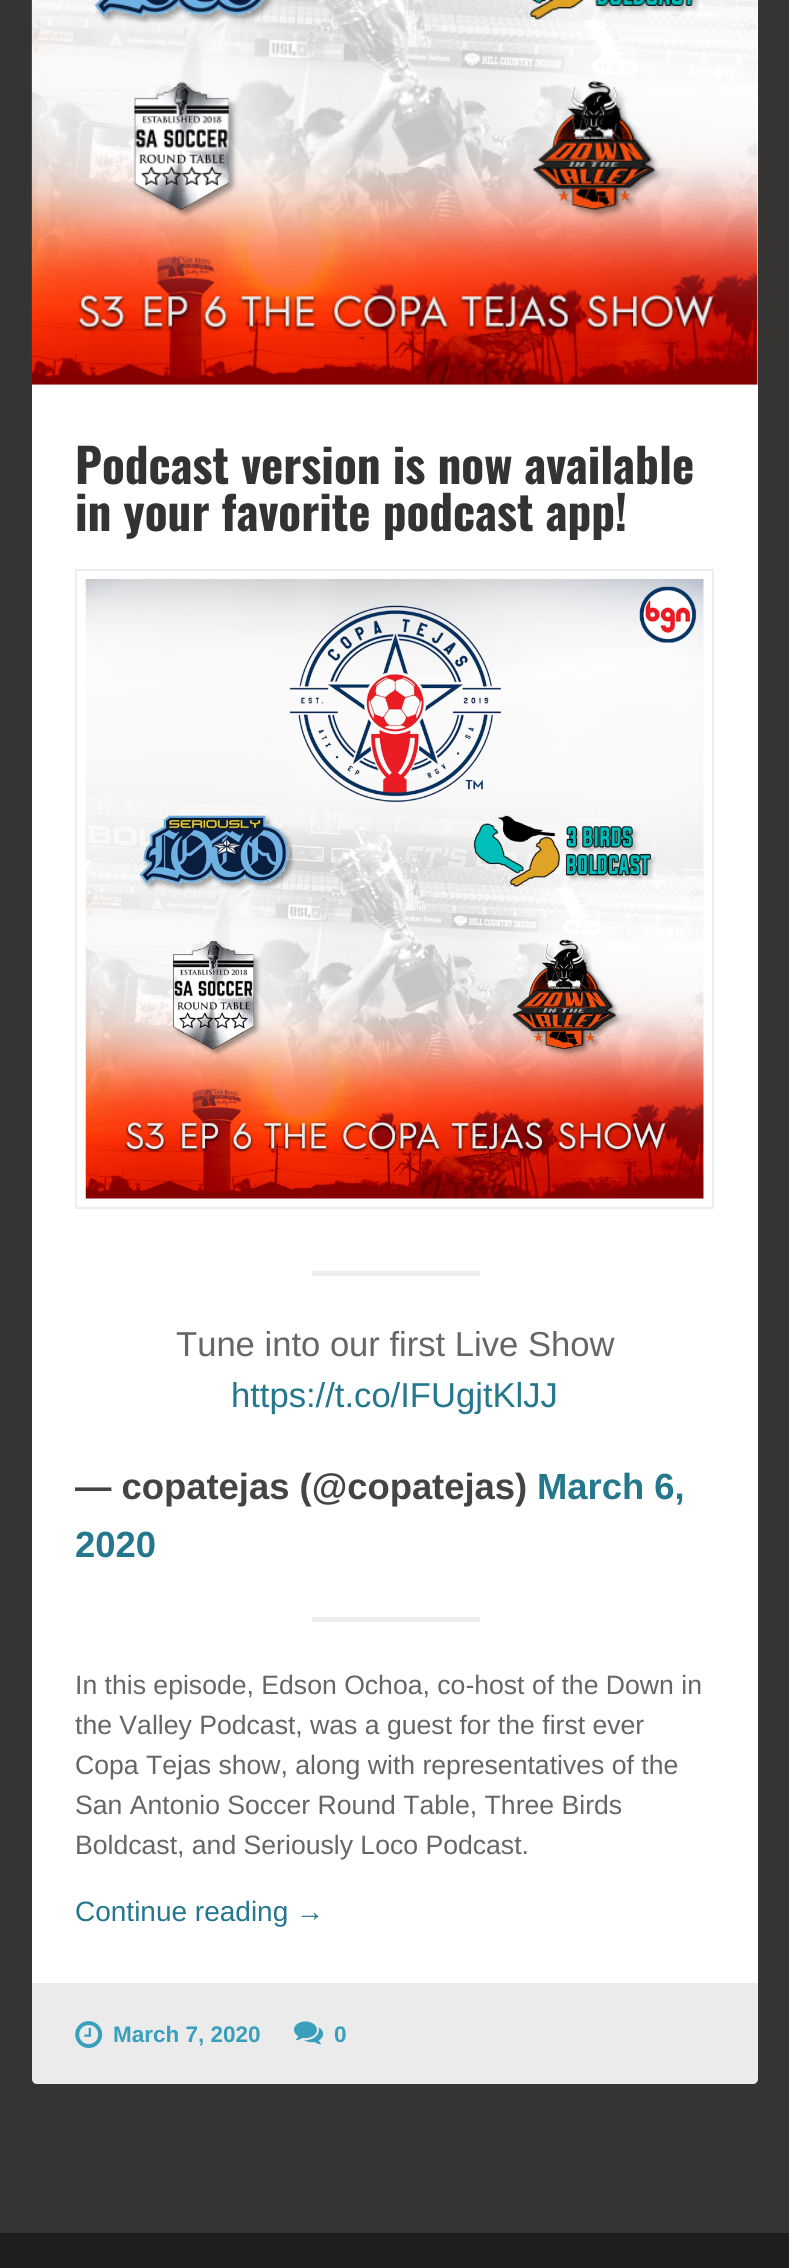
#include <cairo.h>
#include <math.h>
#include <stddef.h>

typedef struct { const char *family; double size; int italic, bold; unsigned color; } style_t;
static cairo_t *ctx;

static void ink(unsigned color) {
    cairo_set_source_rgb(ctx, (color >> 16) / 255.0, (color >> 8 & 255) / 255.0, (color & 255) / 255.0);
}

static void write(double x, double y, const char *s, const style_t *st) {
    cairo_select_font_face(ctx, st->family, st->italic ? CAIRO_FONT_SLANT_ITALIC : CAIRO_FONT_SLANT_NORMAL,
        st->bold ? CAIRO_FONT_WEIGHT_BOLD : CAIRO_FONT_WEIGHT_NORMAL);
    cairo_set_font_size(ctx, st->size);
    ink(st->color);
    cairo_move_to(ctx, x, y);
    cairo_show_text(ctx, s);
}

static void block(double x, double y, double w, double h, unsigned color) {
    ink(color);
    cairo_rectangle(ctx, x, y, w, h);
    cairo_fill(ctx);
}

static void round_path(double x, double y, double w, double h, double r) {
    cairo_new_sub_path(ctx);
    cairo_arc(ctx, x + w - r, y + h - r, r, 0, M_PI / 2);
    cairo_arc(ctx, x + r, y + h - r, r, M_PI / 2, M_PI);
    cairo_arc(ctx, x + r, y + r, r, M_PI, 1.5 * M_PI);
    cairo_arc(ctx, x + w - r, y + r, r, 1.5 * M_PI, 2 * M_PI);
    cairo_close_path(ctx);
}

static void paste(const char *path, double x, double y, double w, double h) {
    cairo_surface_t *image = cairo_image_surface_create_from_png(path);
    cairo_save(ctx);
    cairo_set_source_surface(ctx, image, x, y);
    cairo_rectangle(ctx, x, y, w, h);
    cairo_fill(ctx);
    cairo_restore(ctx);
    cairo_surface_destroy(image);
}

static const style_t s1 = {"Oswald", 47.25, 0, 1, 0x333333};
static const style_t s2 = {"Arimo", 34.6, 0, 0, 0x666666};
static const style_t s3 = {"Arimo", 34.6, 0, 0, 0x24778d};
static const style_t s4 = {"Arimo", 36.4, 0, 1, 0x444444};
static const style_t s5 = {"Arimo", 36.4, 0, 1, 0x24778d};
static const style_t s6 = {"Arimo", 26.6, 0, 0, 0x666666};
static const style_t s7 = {"Arimo", 28, 0, 0, 0x24778d};
static const style_t s8 = {"Liberation Sans", 28, 0, 0, 0x24778d};
static const style_t s9 = {"Arimo", 22.5, 0, 1, 0x389fbc};

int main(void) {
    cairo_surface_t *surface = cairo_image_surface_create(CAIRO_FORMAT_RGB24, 789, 2268);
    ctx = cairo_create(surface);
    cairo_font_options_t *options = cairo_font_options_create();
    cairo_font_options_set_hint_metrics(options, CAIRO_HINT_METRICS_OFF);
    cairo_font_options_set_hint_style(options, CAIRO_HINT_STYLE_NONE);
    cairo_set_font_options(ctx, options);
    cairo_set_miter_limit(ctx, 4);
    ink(0x353432);
    cairo_paint(ctx);
    ink(0xffffff);
    round_path(32, -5, 726, 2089, 5);
    cairo_fill(ctx);
    paste("pic1.png", 31, 0, 727, 385);
    write(75, 484, "Podcast version is now available", &s1);
    write(75, 531, "in your favorite podcast app!", &s1);
    cairo_rectangle(ctx, 76, 570, 637, 638);
    ink(0xeeeeee);
    cairo_stroke(ctx);
    paste("pic2.png", 85, 579, 619, 620);
    block(312, 1271, 168, 5, 0xeeeeee);
    write(176, 1356, "Tune into our first Live Show", &s2);
    write(231, 1407, "https://t.co/IFUgjtKlJJ", &s3);
    write(75, 1499, "— copatejas (@copatejas)", &s4);
    write(537, 1499, "March 6,", &s5);
    write(75, 1557, "2020", &s5);
    block(312, 1617, 168, 5, 0xeeeeee);
    write(75, 1694, "In this episode, Edson Ochoa, co-host of the Down in", &s6);
    write(75, 1734, "the Valley Podcast, was a guest for the first ever", &s6);
    write(75, 1774, "Copa Tejas show, along with representatives of the", &s6);
    write(75, 1814, "San Antonio Soccer Round Table, Three Birds", &s6);
    write(75, 1854, "Boldcast, and Seriously Loco Podcast.", &s6);
    write(75, 1921, "Continue reading", &s7);
    write(296, 1921, "→", &s8);
    cairo_set_source_rgba(ctx, 0.208, 0.204, 0.196, 0.1);
    cairo_new_path(ctx);
    cairo_move_to(ctx, 32, 1983);
    cairo_line_to(ctx, 758, 1983);
    cairo_line_to(ctx, 758, 2079);
    cairo_curve_to(ctx, 758, 2082, 756, 2084, 753, 2084);
    cairo_line_to(ctx, 37, 2084);
    cairo_curve_to(ctx, 34, 2084, 32, 2082, 32, 2079);
    cairo_close_path(ctx);
    cairo_fill(ctx);
    paste("pic3.png", 75, 2021, 28, 27);
    write(113, 2042, "March 7, 2020", &s9);
    paste("pic4.png", 294, 2021, 30, 24);
    write(334, 2042, "0", &s9);
    block(0, 2233, 789, 35, 0x1f1e1d);
    cairo_surface_write_to_png(surface, "screenshot.png");
    cairo_font_options_destroy(options);
    cairo_destroy(ctx);
    cairo_surface_destroy(surface);
    return 0;
}
